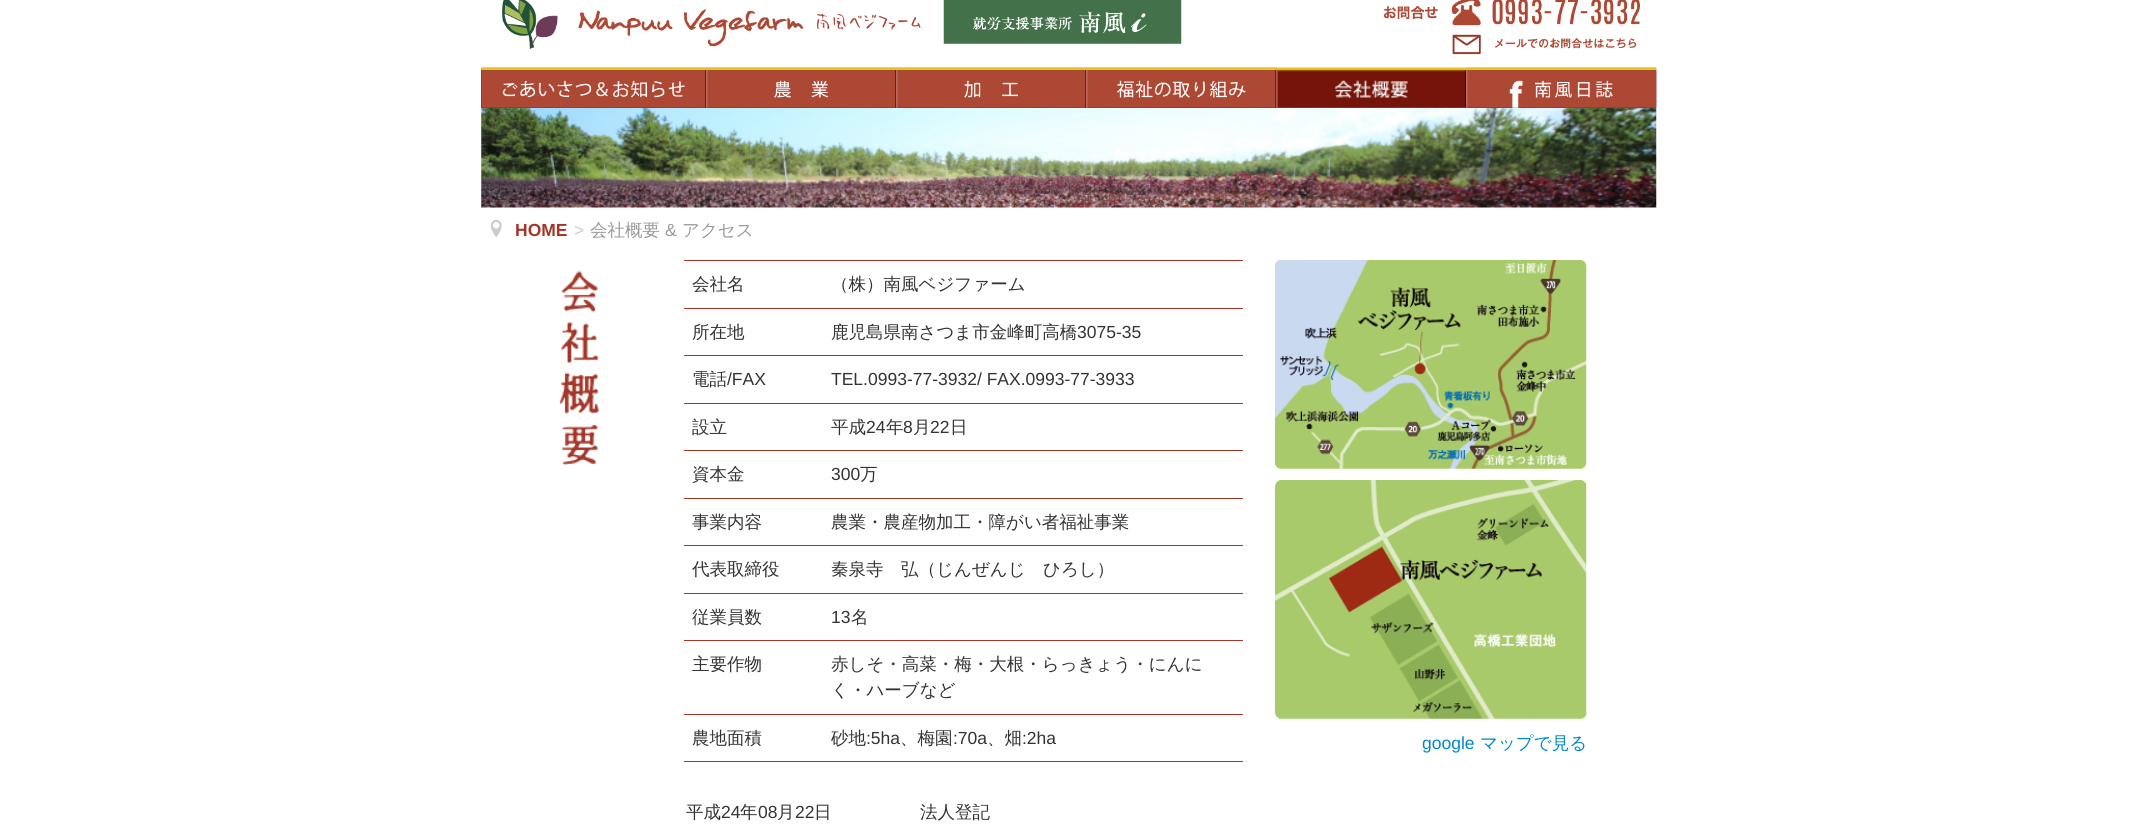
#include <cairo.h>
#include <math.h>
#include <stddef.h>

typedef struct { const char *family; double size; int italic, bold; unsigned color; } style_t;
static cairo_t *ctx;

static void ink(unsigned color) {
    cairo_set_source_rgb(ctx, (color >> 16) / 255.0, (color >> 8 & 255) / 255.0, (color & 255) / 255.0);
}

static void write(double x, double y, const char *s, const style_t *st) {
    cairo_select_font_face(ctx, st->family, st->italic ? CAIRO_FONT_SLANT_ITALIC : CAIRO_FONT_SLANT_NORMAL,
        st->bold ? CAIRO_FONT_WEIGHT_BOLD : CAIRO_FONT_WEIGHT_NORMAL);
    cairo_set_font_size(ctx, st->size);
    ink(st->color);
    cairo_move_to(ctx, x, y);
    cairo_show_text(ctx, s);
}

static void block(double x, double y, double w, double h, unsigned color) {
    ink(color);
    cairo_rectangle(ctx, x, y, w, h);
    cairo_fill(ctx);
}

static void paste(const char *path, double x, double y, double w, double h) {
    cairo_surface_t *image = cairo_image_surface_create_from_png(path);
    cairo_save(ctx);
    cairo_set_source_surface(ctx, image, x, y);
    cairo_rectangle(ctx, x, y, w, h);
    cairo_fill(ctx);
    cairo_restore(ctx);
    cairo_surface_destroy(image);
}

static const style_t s1 = {"Liberation Sans", 17.5, 0, 1, 0xa33628};
static const style_t s2 = {"Liberation Sans", 17.5, 0, 0, 0xcccccc};
static const style_t s3 = {"WenQuanYi Zen Hei Medium", 17.5, 0, 0, 0x999999};
static const style_t s4 = {"Liberation Sans", 17.5, 0, 0, 0x999999};
static const style_t s5 = {"WenQuanYi Zen Hei Medium", 17.5, 0, 0, 0x333333};
static const style_t s6 = {"Liberation Sans", 17.5, 0, 0, 0x333333};
static const style_t s7 = {"Liberation Sans", 17.5, 0, 0, 0x0088cc};
static const style_t s8 = {"WenQuanYi Zen Hei Medium", 17.5, 0, 0, 0x0088cc};

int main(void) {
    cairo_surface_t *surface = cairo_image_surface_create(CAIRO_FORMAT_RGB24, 2136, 830);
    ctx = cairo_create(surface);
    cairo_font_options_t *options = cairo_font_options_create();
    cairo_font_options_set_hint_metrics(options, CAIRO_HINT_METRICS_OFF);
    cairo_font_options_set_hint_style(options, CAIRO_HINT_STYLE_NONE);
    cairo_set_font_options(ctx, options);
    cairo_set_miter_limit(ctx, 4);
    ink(0xffffff);
    cairo_paint(ctx);
    paste("pic1.png", 502, 0, 419, 49);
    paste("pic2.png", 943, 0, 239, 44);
    paste("pic3.png", 1383, 0, 257, 55);
    paste("pic15.png", 481, 107, 1176, 101);
    block(481, 68, 1175, 40, 0xac4833);
    paste("pic4.png", 481, 67, 226, 41);
    paste("pic5.png", 481, 67, 226, 41);
    paste("pic6.png", 706, 67, 191, 41);
    paste("pic7.png", 706, 67, 191, 41);
    paste("pic8.png", 896, 67, 191, 41);
    paste("pic9.png", 896, 67, 191, 41);
    paste("pic10.png", 1086, 67, 191, 41);
    paste("pic11.png", 1086, 67, 191, 41);
    paste("pic12.png", 1276, 67, 191, 41);
    paste("pic13.png", 1466, 67, 191, 41);
    paste("pic14.png", 1466, 67, 191, 41);
    paste("pic16.png", 490, 219, 12, 19);
    write(515, 236, "HOME", &s1);
    write(574, 236, ">", &s2);
    write(590, 236, "会社概要", &s3);
    write(665, 236, "&", &s4);
    write(682, 236, "アクセス", &s3);
    paste("pic17.png", 559, 271, 40, 195);
    write(692, 290, "会社名", &s5);
    block(684, 260, 559, 1, 0xa33628);
    write(831, 290, "（株）南風ベジファーム", &s5);
    write(692, 338, "所在地", &s5);
    block(684, 308, 559, 1, 0xa33628);
    write(831, 338, "鹿児島県南さつま市金峰町高橋", &s5);
    write(1077, 338, "3075-35", &s6);
    write(692, 385, "電話", &s5);
    write(727, 385, "/FAX", &s6);
    block(684, 355, 559, 1, 0xa33628);
    write(831, 385, "TEL.0993-77-3932/ FAX.0993-77-3933", &s6);
    write(692, 433, "設立", &s5);
    block(684, 403, 559, 1, 0xa33628);
    write(831, 433, "平成", &s5);
    write(866, 433, "24", &s6);
    write(886, 433, "年", &s5);
    write(903, 433, "8", &s6);
    write(913, 433, "月", &s5);
    write(930, 433, "22", &s6);
    write(950, 433, "日", &s5);
    write(692, 480, "資本金", &s5);
    block(684, 450, 559, 1, 0xa33628);
    write(831, 480, "300", &s6);
    write(860, 480, "万", &s5);
    write(692, 528, "事業内容", &s5);
    block(684, 498, 559, 1, 0xa33628);
    write(831, 528, "農業・農産物加工・障がい者福祉事業", &s5);
    write(692, 575, "代表取締役", &s5);
    block(684, 545, 559, 1, 0xa33628);
    write(831, 575, "秦泉寺　弘（じんぜんじ　ひろし）", &s5);
    write(692, 623, "従業員数", &s5);
    block(684, 593, 559, 1, 0xa33628);
    write(831, 623, "13", &s6);
    write(851, 623, "名", &s5);
    write(692, 670, "主要作物", &s5);
    block(684, 640, 559, 1, 0xa33628);
    write(831, 670, "赤しそ・高菜・梅・大根・らっきょう・にんに", &s5);
    write(831, 696, "く・ハーブなど", &s5);
    write(692, 744, "農地面積", &s5);
    block(684, 714, 559, 1, 0xa33628);
    block(684, 761, 559, 1, 0xa33628);
    write(831, 744, "砂地", &s5);
    write(866, 744, ":5ha", &s6);
    write(900, 744, "、梅園", &s5);
    write(953, 744, ":70a", &s6);
    write(987, 744, "、畑", &s5);
    write(1022, 744, ":2ha", &s6);
    paste("pic18.png", 1275, 260, 312, 209);
    paste("pic19.png", 1275, 480, 312, 239);
    write(1422, 749, "google", &s7);
    write(1480, 749, "マップで見る", &s8);
    write(686, 818, "平成", &s5);
    write(721, 818, "24", &s6);
    write(740, 818, "年", &s5);
    write(758, 818, "08", &s6);
    write(777, 818, "月", &s5);
    write(795, 818, "22", &s6);
    write(814, 818, "日", &s5);
    write(920, 818, "法人登記", &s5);
    cairo_surface_write_to_png(surface, "screenshot.png");
    cairo_font_options_destroy(options);
    cairo_destroy(ctx);
    cairo_surface_destroy(surface);
    return 0;
}
